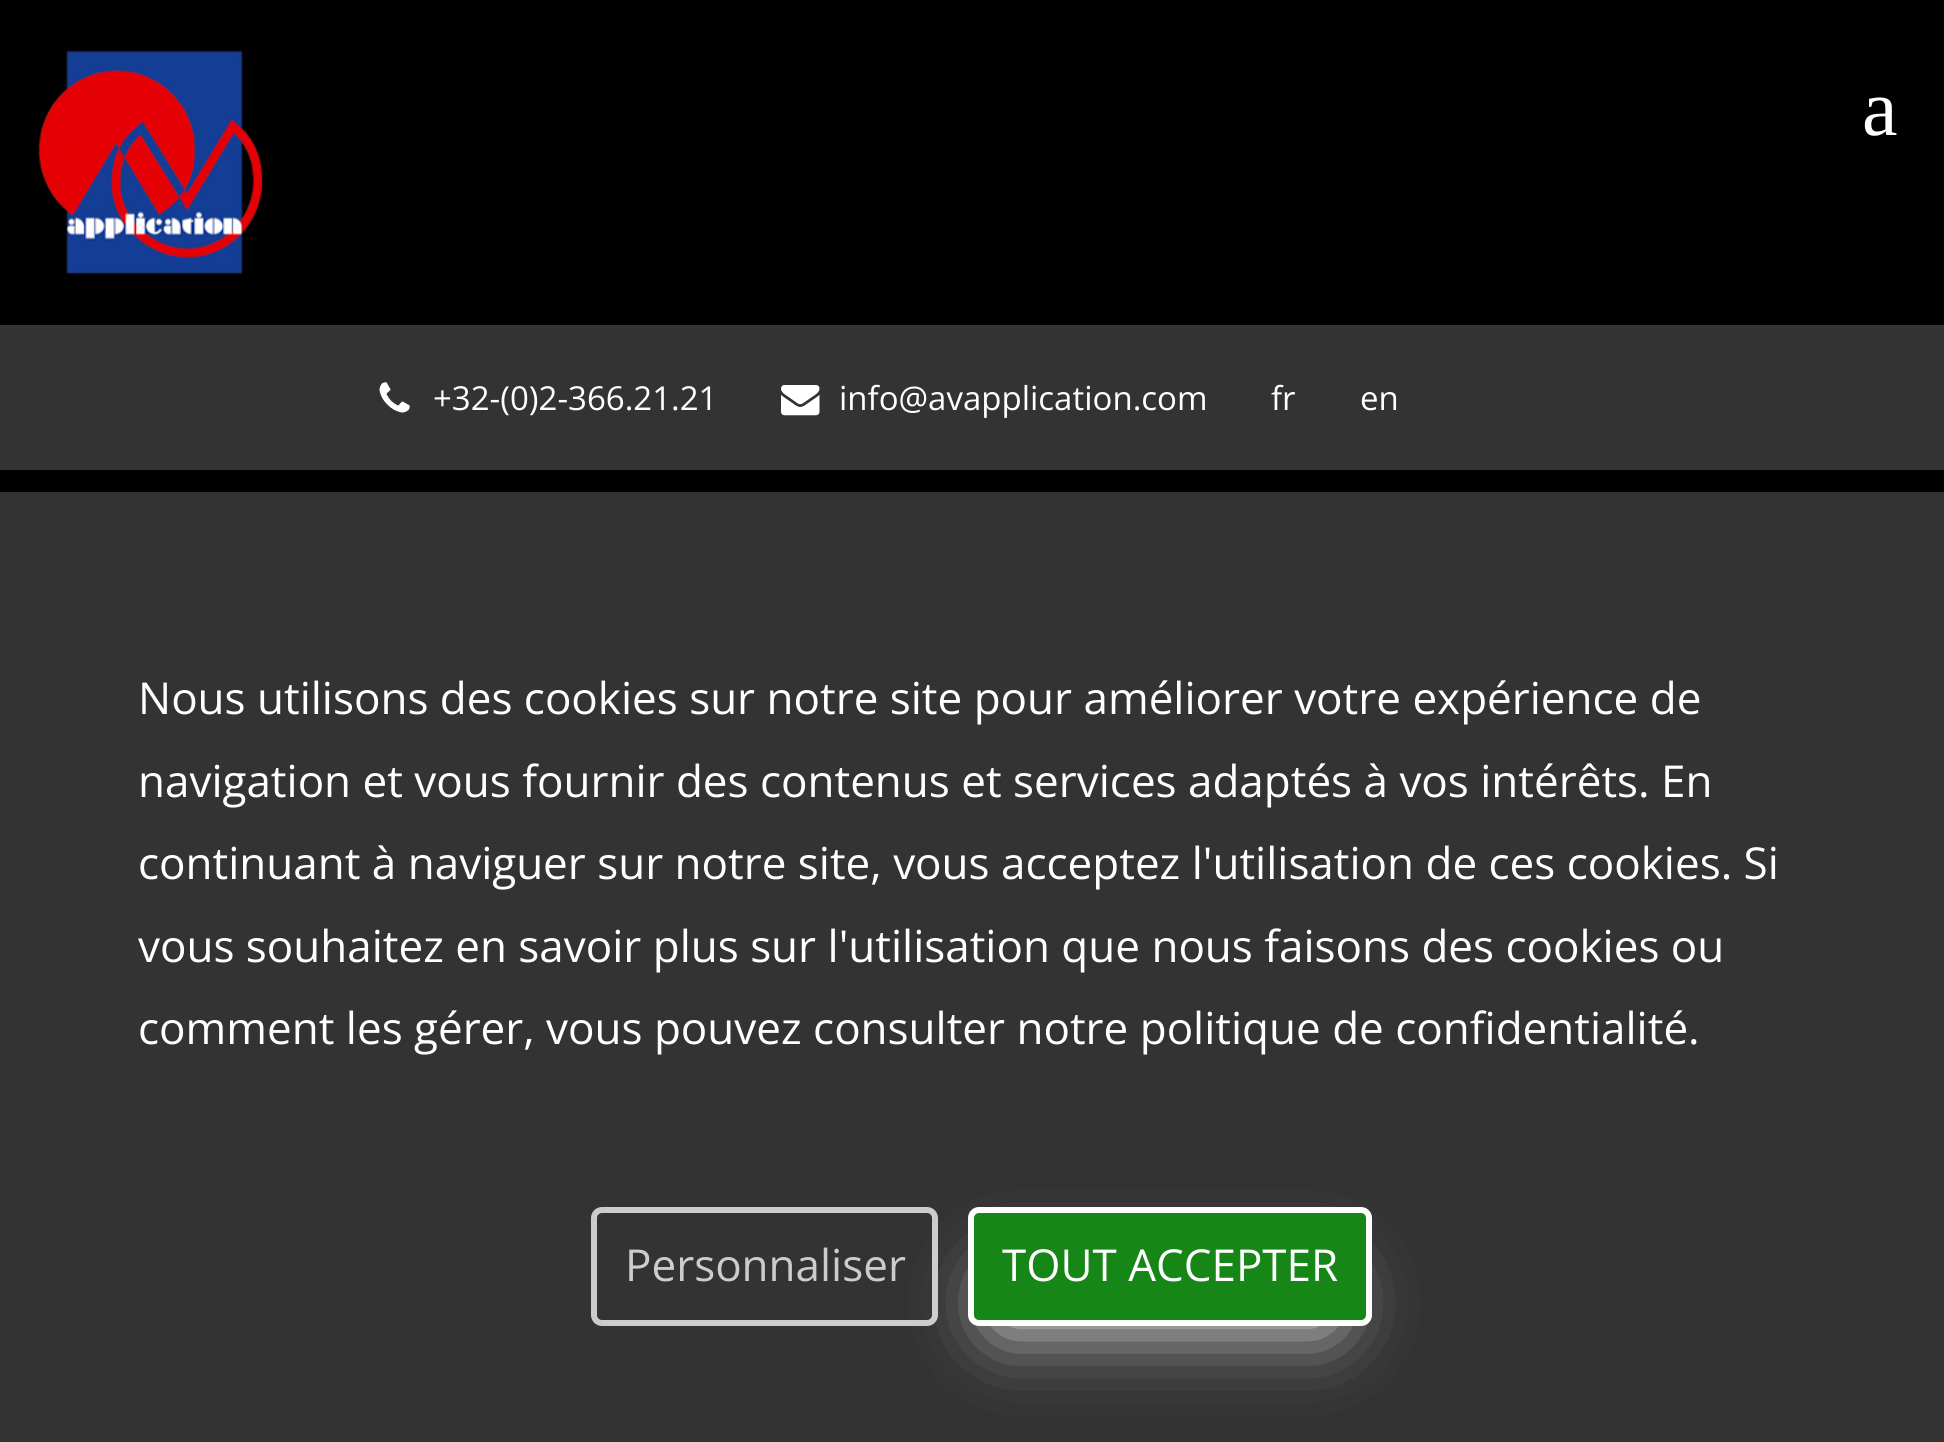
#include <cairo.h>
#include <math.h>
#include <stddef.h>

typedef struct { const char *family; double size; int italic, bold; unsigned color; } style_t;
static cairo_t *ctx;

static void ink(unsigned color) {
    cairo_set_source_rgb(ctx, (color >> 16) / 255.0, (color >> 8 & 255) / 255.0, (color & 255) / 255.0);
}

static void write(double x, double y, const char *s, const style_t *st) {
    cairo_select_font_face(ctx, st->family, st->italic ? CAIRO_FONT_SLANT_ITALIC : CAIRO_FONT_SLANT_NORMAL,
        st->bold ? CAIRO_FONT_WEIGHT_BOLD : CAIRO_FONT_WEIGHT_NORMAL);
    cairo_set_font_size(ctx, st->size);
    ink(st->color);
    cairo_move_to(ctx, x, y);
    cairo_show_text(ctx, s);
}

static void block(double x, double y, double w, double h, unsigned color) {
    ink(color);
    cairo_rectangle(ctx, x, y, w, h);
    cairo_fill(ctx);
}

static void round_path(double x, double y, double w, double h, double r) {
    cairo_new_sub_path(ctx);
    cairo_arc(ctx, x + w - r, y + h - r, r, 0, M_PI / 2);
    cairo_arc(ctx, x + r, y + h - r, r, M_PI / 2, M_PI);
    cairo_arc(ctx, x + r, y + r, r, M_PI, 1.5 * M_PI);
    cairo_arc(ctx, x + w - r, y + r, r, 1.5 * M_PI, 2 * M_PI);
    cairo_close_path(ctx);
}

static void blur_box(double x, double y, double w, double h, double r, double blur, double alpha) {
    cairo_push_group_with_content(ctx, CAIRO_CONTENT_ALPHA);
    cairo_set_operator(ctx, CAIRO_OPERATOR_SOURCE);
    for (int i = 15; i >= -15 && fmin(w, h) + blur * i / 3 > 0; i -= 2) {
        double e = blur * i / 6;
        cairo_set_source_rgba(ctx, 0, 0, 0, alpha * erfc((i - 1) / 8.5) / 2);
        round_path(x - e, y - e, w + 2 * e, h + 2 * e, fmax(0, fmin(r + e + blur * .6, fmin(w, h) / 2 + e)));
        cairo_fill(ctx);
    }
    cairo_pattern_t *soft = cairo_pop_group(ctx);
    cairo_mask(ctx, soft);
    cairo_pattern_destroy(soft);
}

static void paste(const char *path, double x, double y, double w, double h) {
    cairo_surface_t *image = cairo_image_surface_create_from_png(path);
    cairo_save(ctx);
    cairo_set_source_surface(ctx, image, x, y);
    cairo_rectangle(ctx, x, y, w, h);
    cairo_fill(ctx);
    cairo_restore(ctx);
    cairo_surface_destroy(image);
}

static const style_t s1 = {"Liberation Serif", 80, 0, 0, 0xffffff};
static const style_t s2 = {"Open Sans", 33, 0, 0, 0xffffff};
static const style_t s3 = {"Open Sans", 44, 0, 0, 0xffffff};
static const style_t s4 = {"Open Sans", 44, 0, 0, 0xcccccc};

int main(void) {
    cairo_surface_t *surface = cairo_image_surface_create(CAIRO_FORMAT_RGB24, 1944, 1442);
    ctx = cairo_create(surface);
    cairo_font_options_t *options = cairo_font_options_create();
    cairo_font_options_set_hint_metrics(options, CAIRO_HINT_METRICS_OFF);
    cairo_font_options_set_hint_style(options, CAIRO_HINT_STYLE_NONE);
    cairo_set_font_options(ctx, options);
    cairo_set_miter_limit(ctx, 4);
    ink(0x000000);
    cairo_paint(ctx);
    paste("pic1.png", 38, 50, 225, 225);
    write(1862, 135, "a", &s1);
    block(0, 325, 1944, 145, 0x333333);
    paste("pic2.png", 379, 382, 31, 31);
    write(433, 410, "+32-(0)2-366.21.21", &s2);
    paste("pic3.png", 781, 385, 39, 31);
    write(839, 410, "info@avapplication.com", &s2);
    write(1271, 410, "fr", &s2);
    write(1360, 410, "en", &s2);
    block(0, 492, 1944, 950, 0x333333);
    write(138, 714, "Nous utilisons des cookies sur notre site pour améliorer votre expérience de", &s3);
    write(138, 797, "navigation et vous fournir des contenus et services adaptés à vos intérêts. En", &s3);
    write(138, 879, "continuant à naviguer sur notre site, vous acceptez l'utilisation de ces cookies. Si", &s3);
    write(138, 962, "vous souhaitez en savoir plus sur l'utilisation que nous faisons des cookies ou", &s3);
    write(138, 1044, "comment les gérer, vous pouvez consulter notre politique de confidentialité.", &s3);
    round_path(594, 1210, 341, 113, 8);
    ink(0xcccccc);
    cairo_set_line_width(ctx, 6);
    cairo_stroke(ctx);
    write(625, 1281, "Personnaliser", &s4);
    ink(0xffffff);
    blur_box(1001, 1282, 327, 41, 0, 37, 1);
    ink(0x168616);
    round_path(971, 1210, 398, 113, 8);
    cairo_fill_preserve(ctx);
    ink(0xffffff);
    cairo_stroke(ctx);
    write(1002, 1281, "TOUT ACCEPTER", &s3);
    cairo_surface_write_to_png(surface, "screenshot.png");
    cairo_font_options_destroy(options);
    cairo_destroy(ctx);
    cairo_surface_destroy(surface);
    return 0;
}
